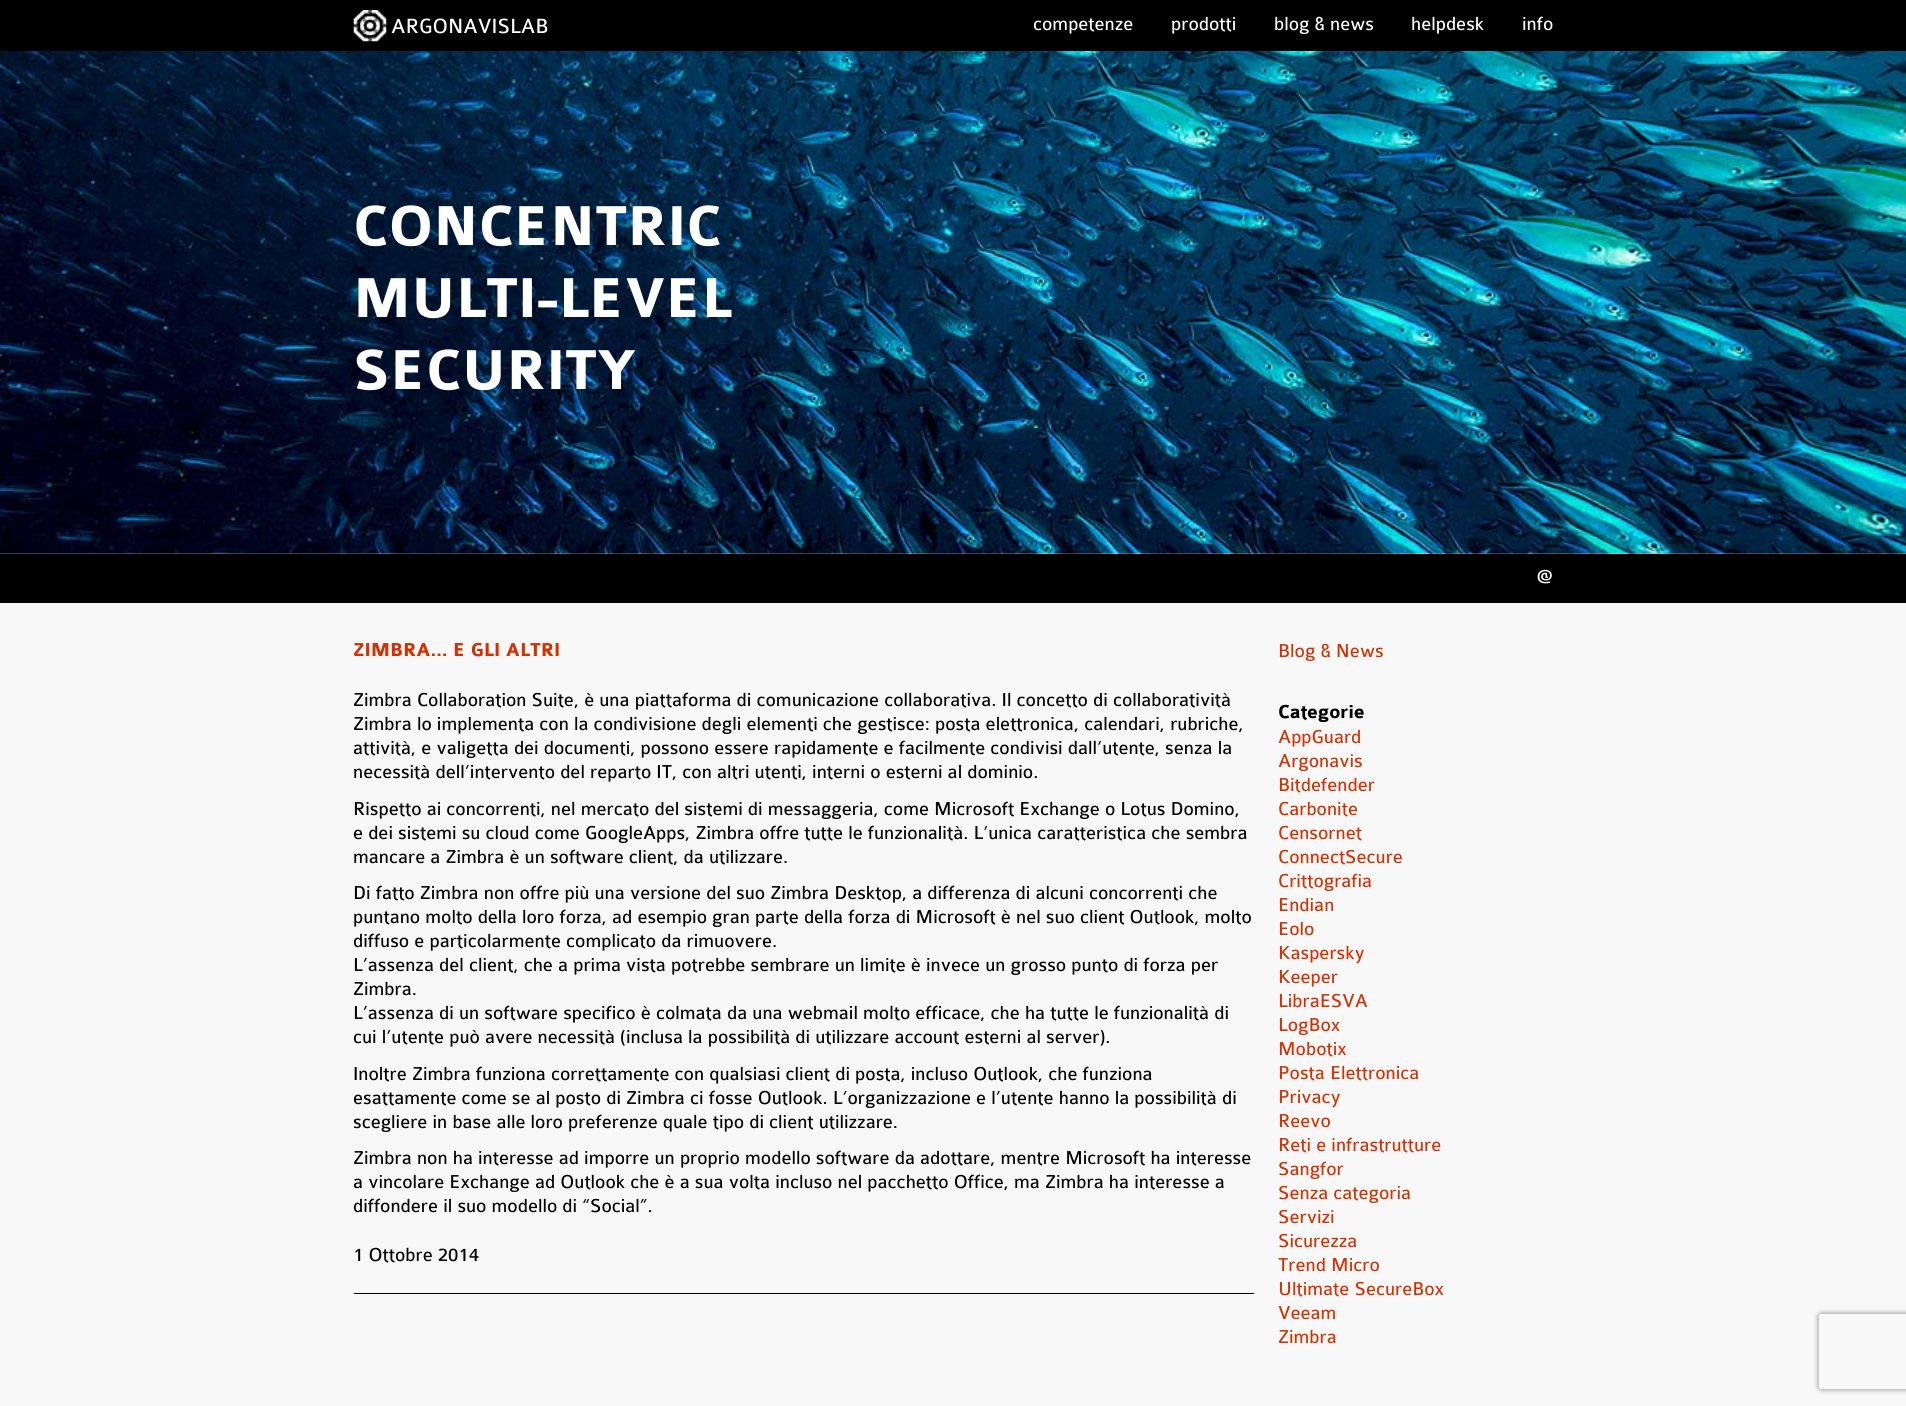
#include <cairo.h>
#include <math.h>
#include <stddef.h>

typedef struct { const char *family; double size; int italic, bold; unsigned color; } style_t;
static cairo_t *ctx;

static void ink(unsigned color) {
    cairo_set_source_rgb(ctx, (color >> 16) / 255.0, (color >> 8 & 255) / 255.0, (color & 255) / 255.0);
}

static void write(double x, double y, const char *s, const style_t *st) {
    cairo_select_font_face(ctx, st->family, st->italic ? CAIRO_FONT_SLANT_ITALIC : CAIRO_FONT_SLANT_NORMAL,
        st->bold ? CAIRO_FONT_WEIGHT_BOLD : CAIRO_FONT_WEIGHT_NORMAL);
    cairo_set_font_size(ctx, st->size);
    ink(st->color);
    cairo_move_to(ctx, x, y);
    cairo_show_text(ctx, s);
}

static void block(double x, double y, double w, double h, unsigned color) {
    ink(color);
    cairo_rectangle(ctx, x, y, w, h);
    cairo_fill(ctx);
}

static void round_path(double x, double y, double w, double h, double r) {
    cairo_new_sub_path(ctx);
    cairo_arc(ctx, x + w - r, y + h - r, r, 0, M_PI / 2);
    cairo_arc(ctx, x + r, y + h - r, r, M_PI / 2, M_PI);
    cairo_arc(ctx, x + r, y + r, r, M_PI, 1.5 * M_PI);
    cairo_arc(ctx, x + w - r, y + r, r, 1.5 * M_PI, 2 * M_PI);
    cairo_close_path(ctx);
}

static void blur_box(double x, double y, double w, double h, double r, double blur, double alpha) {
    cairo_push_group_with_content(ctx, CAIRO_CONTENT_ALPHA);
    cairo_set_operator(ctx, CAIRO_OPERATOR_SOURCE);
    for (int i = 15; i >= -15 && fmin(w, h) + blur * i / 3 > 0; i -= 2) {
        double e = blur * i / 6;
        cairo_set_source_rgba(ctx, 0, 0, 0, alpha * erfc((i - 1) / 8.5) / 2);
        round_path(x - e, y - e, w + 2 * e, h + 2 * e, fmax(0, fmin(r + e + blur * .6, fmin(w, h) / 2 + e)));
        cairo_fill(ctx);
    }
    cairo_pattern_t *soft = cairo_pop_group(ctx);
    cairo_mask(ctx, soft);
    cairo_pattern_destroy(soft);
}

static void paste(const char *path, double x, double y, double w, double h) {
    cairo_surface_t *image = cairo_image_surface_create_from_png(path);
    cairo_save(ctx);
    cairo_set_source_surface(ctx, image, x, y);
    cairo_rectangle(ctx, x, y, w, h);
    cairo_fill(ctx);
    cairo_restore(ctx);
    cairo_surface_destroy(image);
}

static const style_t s1 = {"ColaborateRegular", 22, 0, 0, 0xffffff};
static const style_t s2 = {"ColaborateRegular", 20, 0, 0, 0xffffff};
static const style_t s3 = {"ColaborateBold", 60, 0, 1, 0xffffff};
static const style_t s4 = {"ColaborateBold", 20, 0, 1, 0xd23103};
static const style_t s5 = {"ColaborateRegular", 20, 0, 0, 0x000000};
static const style_t s6 = {"ColaborateRegular", 20, 0, 0, 0xd23103};
static const style_t s7 = {"ColaborateBold", 20, 0, 1, 0x000000};

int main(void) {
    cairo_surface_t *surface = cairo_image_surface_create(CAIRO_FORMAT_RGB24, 1906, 1406);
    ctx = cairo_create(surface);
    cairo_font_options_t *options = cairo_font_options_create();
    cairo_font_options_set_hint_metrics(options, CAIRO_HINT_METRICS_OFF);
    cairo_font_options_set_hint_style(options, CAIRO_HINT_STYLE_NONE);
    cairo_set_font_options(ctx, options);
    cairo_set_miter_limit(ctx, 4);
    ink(0xf8f8f8);
    cairo_paint(ctx);
    block(0, 0, 1906, 51, 0x000000);
    paste("pic1.png", 353, 10, 34, 32);
    write(391, 33, "ARGONAVISLAB", &s1);
    write(1033, 30, "competenze", &s2);
    write(1171, 30, "prodotti", &s2);
    write(1274, 30, "blog & news", &s2);
    write(1411, 30, "helpdesk", &s2);
    write(1522, 30, "info", &s2);
    paste("pic2.png", 0, 51, 1906, 503);
    write(353, 245, "CONCENTRIC", &s3);
    write(353, 317, "MULTI-LEVEL", &s3);
    write(353, 389, "SECURITY", &s3);
    block(0, 554, 1906, 49, 0x000000);
    write(1536, 583, "@", &s2);
    block(354, 1293, 900, 1, 0x000000);
    write(353, 656, "ZIMBRA… E GLI ALTRI", &s4);
    write(353, 706, "Zimbra Collaboration Suite, è una piattaforma di comunicazione collaborativa. Il concetto di collaboratività", &s5);
    write(353, 730, "Zimbra lo implementa con la condivisione degli elementi che gestisce: posta elettronica, calendari, rubriche,", &s5);
    write(353, 754, "attività, e valigetta dei documenti, possono essere rapidamente e facilmente condivisi dall’utente, senza la", &s5);
    write(353, 778, "necessità dell’intervento del reparto IT, con altri utenti, interni o esterni al dominio.", &s5);
    write(353, 815, "Rispetto ai concorrenti, nel mercato del sistemi di messaggeria, come Microsoft Exchange o Lotus Domino,", &s5);
    write(353, 839, "e dei sistemi su cloud come GoogleApps, Zimbra offre tutte le funzionalità. L’unica caratteristica che sembra", &s5);
    write(353, 863, "mancare a Zimbra è un software client, da utilizzare.", &s5);
    write(353, 899, "Di fatto Zimbra non offre più una versione del suo Zimbra Desktop, a differenza di alcuni concorrenti che", &s5);
    write(353, 923, "puntano molto della loro forza, ad esempio gran parte della forza di Microsoft è nel suo client Outlook, molto", &s5);
    write(353, 947, "diffuso e particolarmente complicato da rimuovere.", &s5);
    write(353, 971, "L’assenza del client, che a prima vista potrebbe sembrare un limite è invece un grosso punto di forza per", &s5);
    write(353, 995, "Zimbra.", &s5);
    write(353, 1019, "L’assenza di un software specifico è colmata da una webmail molto efficace, che ha tutte le funzionalità di", &s5);
    write(353, 1043, "cui l’utente può avere necessità (inclusa la possibilità di utilizzare account esterni al server).", &s5);
    write(353, 1080, "Inoltre Zimbra funziona correttamente con qualsiasi client di posta, incluso Outlook, che funziona", &s5);
    write(353, 1104, "esattamente come se al posto di Zimbra ci fosse Outlook. L’organizzazione e l’utente hanno la possibilità di", &s5);
    write(353, 1128, "scegliere in base alle loro preferenze quale tipo di client utilizzare.", &s5);
    write(353, 1164, "Zimbra non ha interesse ad imporre un proprio modello software da adottare, mentre Microsoft ha interesse", &s5);
    write(353, 1188, "a vincolare Exchange ad Outlook che è a sua volta incluso nel pacchetto Office, ma Zimbra ha interesse a", &s5);
    write(353, 1212, "diffondere il suo modello di “Social”.", &s5);
    write(353, 1261, "1 Ottobre 2014", &s5);
    write(1278, 657, "Blog & News", &s6);
    write(1278, 718, "Categorie", &s7);
    write(1278, 743, "AppGuard", &s6);
    write(1278, 767, "Argonavis", &s6);
    write(1278, 791, "Bitdefender", &s6);
    write(1278, 815, "Carbonite", &s6);
    write(1278, 839, "Censornet", &s6);
    write(1278, 863, "ConnectSecure", &s6);
    write(1278, 887, "Crittografia", &s6);
    write(1278, 911, "Endian", &s6);
    write(1278, 935, "Eolo", &s6);
    write(1278, 959, "Kaspersky", &s6);
    write(1278, 983, "Keeper", &s6);
    write(1278, 1007, "LibraESVA", &s6);
    write(1278, 1031, "LogBox", &s6);
    write(1278, 1055, "Mobotix", &s6);
    write(1278, 1079, "Posta Elettronica", &s6);
    write(1278, 1103, "Privacy", &s6);
    write(1278, 1127, "Reevo", &s6);
    write(1278, 1151, "Reti e infrastrutture", &s6);
    write(1278, 1175, "Sangfor", &s6);
    write(1278, 1199, "Senza categoria", &s6);
    write(1278, 1223, "Servizi", &s6);
    write(1278, 1247, "Sicurezza", &s6);
    write(1278, 1271, "Trend Micro", &s6);
    write(1278, 1295, "Ultimate SecureBox", &s6);
    write(1278, 1319, "Veeam", &s6);
    write(1278, 1343, "Zimbra", &s6);
    cairo_save(ctx);
    cairo_set_fill_rule(ctx, CAIRO_FILL_RULE_EVEN_ODD);
    cairo_new_path(ctx);
    cairo_move_to(ctx, 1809, 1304);
    cairo_line_to(ctx, 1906, 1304);
    cairo_line_to(ctx, 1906, 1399);
    cairo_line_to(ctx, 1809, 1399);
    cairo_close_path(ctx);
    cairo_move_to(ctx, 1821.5, 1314);
    cairo_line_to(ctx, 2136.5, 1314);
    cairo_curve_to(ctx, 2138, 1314, 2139, 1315, 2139, 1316.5);
    cairo_line_to(ctx, 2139, 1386.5);
    cairo_curve_to(ctx, 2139, 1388, 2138, 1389, 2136.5, 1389);
    cairo_line_to(ctx, 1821.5, 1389);
    cairo_curve_to(ctx, 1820, 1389, 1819, 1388, 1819, 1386.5);
    cairo_line_to(ctx, 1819, 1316.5);
    cairo_curve_to(ctx, 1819, 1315, 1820, 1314, 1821.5, 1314);
    cairo_close_path(ctx);
    cairo_clip(ctx);
    ink(0x808080);
    blur_box(1819, 1314, 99, 75, 2.5, 3, 1);
    cairo_restore(ctx);
    cairo_surface_write_to_png(surface, "screenshot.png");
    cairo_font_options_destroy(options);
    cairo_destroy(ctx);
    cairo_surface_destroy(surface);
    return 0;
}
